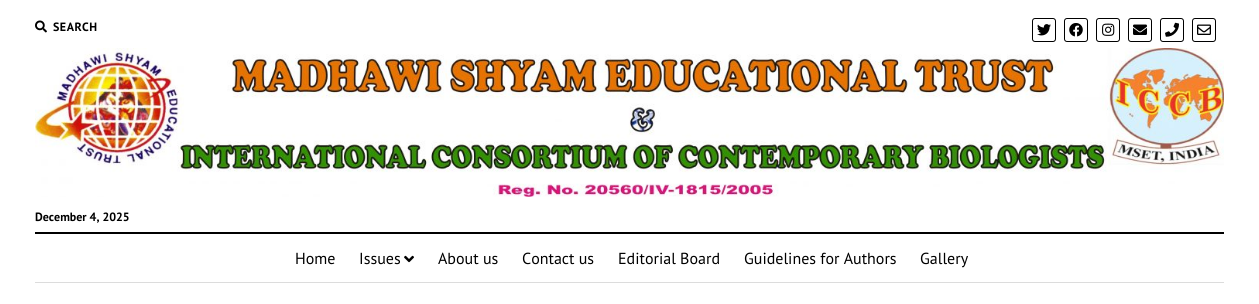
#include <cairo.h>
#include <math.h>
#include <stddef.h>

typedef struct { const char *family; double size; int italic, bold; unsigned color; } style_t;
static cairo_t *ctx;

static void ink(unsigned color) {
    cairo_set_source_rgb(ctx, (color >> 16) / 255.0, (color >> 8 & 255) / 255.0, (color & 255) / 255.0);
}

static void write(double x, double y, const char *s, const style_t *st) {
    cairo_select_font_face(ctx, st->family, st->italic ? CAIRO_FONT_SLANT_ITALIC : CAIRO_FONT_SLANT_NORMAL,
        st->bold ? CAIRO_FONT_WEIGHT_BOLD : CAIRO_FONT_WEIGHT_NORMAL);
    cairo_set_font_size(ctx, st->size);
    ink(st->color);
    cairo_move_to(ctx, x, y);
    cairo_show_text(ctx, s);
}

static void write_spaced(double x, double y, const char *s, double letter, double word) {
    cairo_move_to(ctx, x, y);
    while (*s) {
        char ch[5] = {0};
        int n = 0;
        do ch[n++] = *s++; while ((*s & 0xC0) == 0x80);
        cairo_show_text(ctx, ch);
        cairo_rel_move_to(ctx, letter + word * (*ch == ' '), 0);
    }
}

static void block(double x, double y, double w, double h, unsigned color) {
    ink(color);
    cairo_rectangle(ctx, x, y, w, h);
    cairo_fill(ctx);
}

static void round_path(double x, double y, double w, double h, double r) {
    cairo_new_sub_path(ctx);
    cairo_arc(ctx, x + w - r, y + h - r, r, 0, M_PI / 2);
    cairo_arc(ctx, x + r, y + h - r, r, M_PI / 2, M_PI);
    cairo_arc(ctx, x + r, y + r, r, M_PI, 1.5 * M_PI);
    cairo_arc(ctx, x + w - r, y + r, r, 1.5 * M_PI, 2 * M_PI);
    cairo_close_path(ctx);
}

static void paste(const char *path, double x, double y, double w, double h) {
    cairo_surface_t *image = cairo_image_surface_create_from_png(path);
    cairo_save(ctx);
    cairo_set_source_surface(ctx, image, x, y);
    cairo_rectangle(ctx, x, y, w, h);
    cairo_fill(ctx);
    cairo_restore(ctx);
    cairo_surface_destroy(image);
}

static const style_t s1 = {"PT Sans", 12, 0, 1, 0x000000};
static const style_t s2 = {"PT Sans", 16, 0, 0, 0x000000};

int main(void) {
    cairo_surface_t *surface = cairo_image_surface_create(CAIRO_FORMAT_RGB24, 1259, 304);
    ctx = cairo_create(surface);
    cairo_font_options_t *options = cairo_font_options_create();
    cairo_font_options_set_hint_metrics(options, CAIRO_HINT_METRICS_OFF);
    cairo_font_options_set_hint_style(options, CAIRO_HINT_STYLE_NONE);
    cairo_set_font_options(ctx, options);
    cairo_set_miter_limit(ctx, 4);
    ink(0xffffff);
    cairo_paint(ctx);
    paste("pic1.png", 35, 20, 12, 13);
    cairo_select_font_face(ctx, "PT Sans", CAIRO_FONT_SLANT_NORMAL, CAIRO_FONT_WEIGHT_BOLD);
    cairo_set_font_size(ctx, 12);
    ink(0x000000);
    write_spaced(53, 31, "SEARCH", 0.5, 0);
    round_path(1032.5, 18.5, 23, 23, 2.5);
    cairo_set_line_width(ctx, 1);
    cairo_stroke(ctx);
    paste("pic2.png", 1037, 24, 14, 12);
    round_path(1064.5, 18.5, 23, 23, 2.5);
    cairo_stroke(ctx);
    paste("pic3.png", 1069, 23, 14, 14);
    round_path(1096.5, 18.5, 23, 23, 2.5);
    cairo_stroke(ctx);
    paste("pic4.png", 1102, 23, 13, 13);
    round_path(1128.5, 18.5, 23, 23, 2.5);
    cairo_stroke(ctx);
    paste("pic5.png", 1133, 24, 14, 11);
    round_path(1160.5, 18.5, 23, 23, 2.5);
    cairo_stroke(ctx);
    paste("pic6.png", 1165, 22, 14, 15);
    round_path(1192.5, 18.5, 23, 23, 2.5);
    cairo_stroke(ctx);
    paste("pic7.png", 1197, 24, 14, 11);
    paste("pic8.png", 35, 48, 1189, 149);
    write(35, 221, "December 4, 2025", &s1);
    block(35, 232, 1189, 2, 0x000000);
    block(35, 282, 1189, 1, 0xdcdcdc);
    write(295, 264, "Home", &s2);
    write(359, 264, "Issues", &s2);
    paste("pic9.png", 404, 255, 10, 8);
    write(438, 264, "About us", &s2);
    write(522, 264, "Contact us", &s2);
    write(618, 264, "Editorial Board", &s2);
    write(744, 264, "Guidelines for Authors", &s2);
    write(920, 264, "Gallery", &s2);
    cairo_surface_write_to_png(surface, "screenshot.png");
    cairo_font_options_destroy(options);
    cairo_destroy(ctx);
    cairo_surface_destroy(surface);
    return 0;
}
